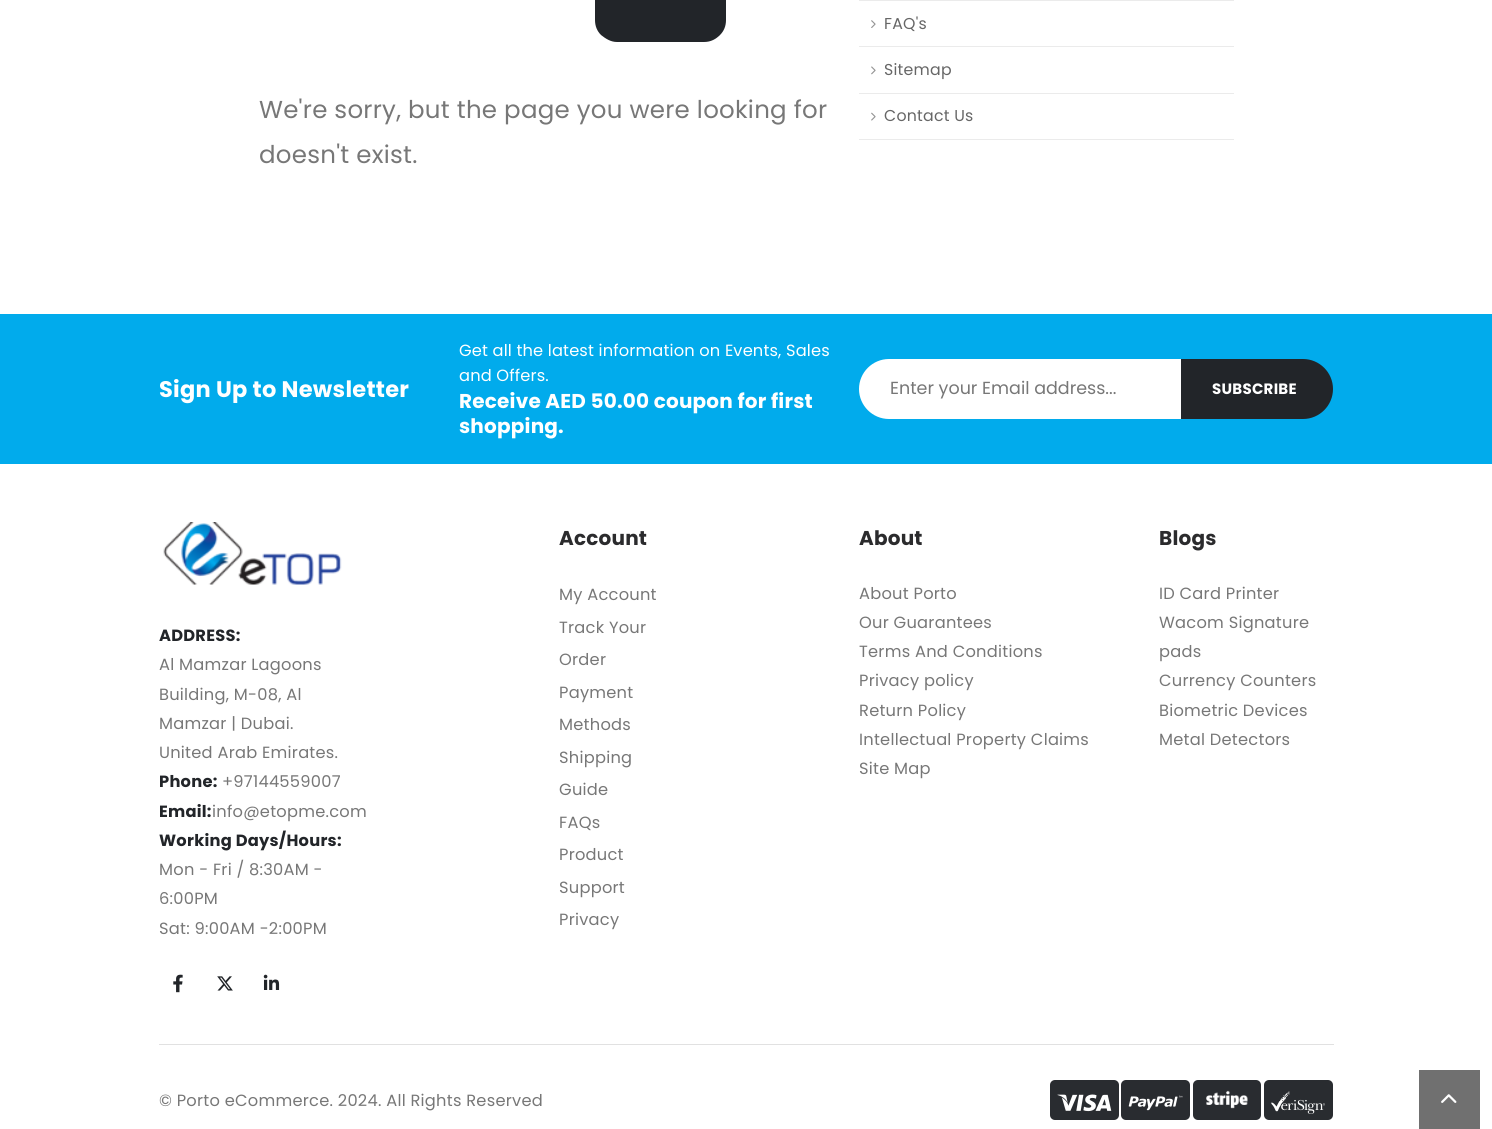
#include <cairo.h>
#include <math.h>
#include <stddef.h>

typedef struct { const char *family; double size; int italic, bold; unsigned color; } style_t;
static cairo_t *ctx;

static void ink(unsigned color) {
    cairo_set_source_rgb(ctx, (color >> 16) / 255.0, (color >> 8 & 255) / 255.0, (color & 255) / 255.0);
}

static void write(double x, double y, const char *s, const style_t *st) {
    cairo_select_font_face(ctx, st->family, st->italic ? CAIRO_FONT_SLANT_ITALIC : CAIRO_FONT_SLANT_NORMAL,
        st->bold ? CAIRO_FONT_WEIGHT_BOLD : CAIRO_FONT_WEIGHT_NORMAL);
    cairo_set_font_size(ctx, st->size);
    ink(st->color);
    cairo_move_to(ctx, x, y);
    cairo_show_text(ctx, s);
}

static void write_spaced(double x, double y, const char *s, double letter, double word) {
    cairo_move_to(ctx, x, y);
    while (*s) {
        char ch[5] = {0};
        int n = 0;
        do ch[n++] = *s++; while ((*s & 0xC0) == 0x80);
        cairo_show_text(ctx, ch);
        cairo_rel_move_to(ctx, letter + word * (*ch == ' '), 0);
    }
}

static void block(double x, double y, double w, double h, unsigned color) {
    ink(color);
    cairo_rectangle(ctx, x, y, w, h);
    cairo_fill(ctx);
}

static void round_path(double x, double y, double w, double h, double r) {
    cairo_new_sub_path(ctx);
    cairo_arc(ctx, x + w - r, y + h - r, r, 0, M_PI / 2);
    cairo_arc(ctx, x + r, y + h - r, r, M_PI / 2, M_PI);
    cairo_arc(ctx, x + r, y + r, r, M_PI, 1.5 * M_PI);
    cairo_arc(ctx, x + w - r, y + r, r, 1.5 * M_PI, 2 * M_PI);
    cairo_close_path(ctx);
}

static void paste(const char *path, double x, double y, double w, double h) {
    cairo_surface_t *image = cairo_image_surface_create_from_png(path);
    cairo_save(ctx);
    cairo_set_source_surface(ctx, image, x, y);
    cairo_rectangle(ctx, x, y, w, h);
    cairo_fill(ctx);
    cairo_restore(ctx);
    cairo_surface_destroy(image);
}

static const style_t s1 = {"Poppins", 17.5, 0, 0, 0x777777};

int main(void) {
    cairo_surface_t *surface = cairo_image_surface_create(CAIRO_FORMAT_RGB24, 1492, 1129);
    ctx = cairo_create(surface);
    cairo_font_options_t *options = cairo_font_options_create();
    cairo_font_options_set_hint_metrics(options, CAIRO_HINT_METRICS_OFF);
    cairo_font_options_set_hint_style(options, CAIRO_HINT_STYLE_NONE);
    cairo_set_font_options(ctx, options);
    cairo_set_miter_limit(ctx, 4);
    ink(0xffffff);
    cairo_paint(ctx);
    block(859, 0, 375, 1, 0xebebeb);
    block(859, 46, 375, 1, 0xebebeb);
    paste("pic1.png", 871, 20, 5, 8);
    cairo_select_font_face(ctx, "Poppins", CAIRO_FONT_SLANT_NORMAL, CAIRO_FONT_WEIGHT_NORMAL);
    cairo_set_font_size(ctx, 15.75);
    ink(0x666666);
    write_spaced(884, 29, "FAQ's", 0.25, 0);
    block(859, 93, 375, 1, 0xebebeb);
    paste("pic2.png", 871, 66, 5, 9);
    ink(0x666666);
    write_spaced(884, 75, "Sitemap", 0.25, 0);
    block(859, 139, 375, 1, 0xebebeb);
    paste("pic3.png", 871, 112, 5, 9);
    ink(0x666666);
    write_spaced(884, 121, "Contact Us", 0.25, 0);
    ink(0x222529);
    cairo_new_path(ctx);
    cairo_move_to(ctx, 595, -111);
    cairo_curve_to(ctx, 595, -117, 597, -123, 601, -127);
    cairo_curve_to(ctx, 606, -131, 611, -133, 617, -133);
    cairo_line_to(ctx, 672, -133);
    cairo_line_to(ctx, 672, -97);
    cairo_curve_to(ctx, 672, -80, 673, -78, 690, -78);
    cairo_line_to(ctx, 726, -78);
    cairo_line_to(ctx, 726, 20);
    cairo_curve_to(ctx, 726, 26, 724, 31, 720, 35);
    cairo_curve_to(ctx, 716, 39, 711, 42, 704, 42);
    cairo_line_to(ctx, 617, 42);
    cairo_curve_to(ctx, 611, 42, 606, 39, 601, 35);
    cairo_curve_to(ctx, 597, 31, 595, 26, 595, 20);
    cairo_close_path(ctx);
    cairo_move_to(ctx, 726, -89);
    cairo_line_to(ctx, 682, -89);
    cairo_line_to(ctx, 682, -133);
    cairo_close_path(ctx);
    cairo_fill(ctx);
    cairo_set_font_size(ctx, 24.5);
    ink(0x777777);
    write_spaced(259, 118, "We're sorry, but the page you were looking for", 0.25, 0);
    write_spaced(259, 163, "doesn't exist.", 0.25, 0);
    block(0, 314, 1492, 150, 0x01abec);
    cairo_select_font_face(ctx, "Poppins", CAIRO_FONT_SLANT_NORMAL, CAIRO_FONT_WEIGHT_BOLD);
    cairo_set_font_size(ctx, 22.5);
    ink(0xffffff);
    write_spaced(159, 397, "Sign Up to Newsletter", 0.25, 0);
    cairo_select_font_face(ctx, "Poppins", CAIRO_FONT_SLANT_NORMAL, CAIRO_FONT_WEIGHT_NORMAL);
    cairo_set_font_size(ctx, 16.25);
    write_spaced(459, 356, "Get all the latest information on Events, Sales", 0.15, 0);
    write_spaced(459, 381, "and Offers.", 0.15, 0);
    cairo_select_font_face(ctx, "Poppins", CAIRO_FONT_SLANT_NORMAL, CAIRO_FONT_WEIGHT_BOLD);
    cairo_set_font_size(ctx, 20);
    write_spaced(459, 408, "Receive AED 50.00 coupon for first", 0.2, 0);
    write_spaced(459, 433, "shopping.", 0.2, 0);
    cairo_new_path(ctx);
    cairo_move_to(ctx, 889, 359);
    cairo_line_to(ctx, 1183, 359);
    cairo_line_to(ctx, 1183, 419);
    cairo_line_to(ctx, 889, 419);
    cairo_curve_to(ctx, 872.5, 419, 859, 405.5, 859, 389);
    cairo_curve_to(ctx, 859, 372.5, 872.5, 359, 889, 359);
    cairo_close_path(ctx);
    cairo_fill(ctx);
    write(890, 394, "Enter your Email address...", &s1);
    ink(0x222529);
    cairo_new_path(ctx);
    cairo_move_to(ctx, 1181, 359);
    cairo_line_to(ctx, 1303, 359);
    cairo_curve_to(ctx, 1319.5, 359, 1333, 372.5, 1333, 389);
    cairo_curve_to(ctx, 1333, 405.5, 1319.5, 419, 1303, 419);
    cairo_line_to(ctx, 1181, 419);
    cairo_close_path(ctx);
    cairo_fill(ctx);
    cairo_select_font_face(ctx, "Poppins", CAIRO_FONT_SLANT_NORMAL, CAIRO_FONT_WEIGHT_BOLD);
    cairo_set_font_size(ctx, 15);
    ink(0xffffff);
    write_spaced(1212, 394, "SUBSCRIBE", 0.25, 0);
    paste("pic4.png", 163, 522, 179, 63);
    cairo_set_font_size(ctx, 16.25);
    ink(0x222529);
    write_spaced(159, 641, "ADDRESS:", 0.25, 0);
    cairo_select_font_face(ctx, "Poppins", CAIRO_FONT_SLANT_NORMAL, CAIRO_FONT_WEIGHT_NORMAL);
    ink(0x777777);
    write_spaced(159, 670, "Al Mamzar Lagoons", 0.25, 0);
    write_spaced(159, 700, "Building, M-08, Al", 0.25, 0);
    write_spaced(159, 729, "Mamzar | Dubai.", 0.25, 0);
    write_spaced(159, 758, "United Arab Emirates.", 0.25, 0);
    cairo_select_font_face(ctx, "Poppins", CAIRO_FONT_SLANT_NORMAL, CAIRO_FONT_WEIGHT_BOLD);
    ink(0x222529);
    write_spaced(159, 787, "Phone:", 0.25, 0);
    cairo_select_font_face(ctx, "Poppins", CAIRO_FONT_SLANT_NORMAL, CAIRO_FONT_WEIGHT_NORMAL);
    ink(0x777777);
    write_spaced(222, 787, "+97144559007", 0.25, 0);
    cairo_select_font_face(ctx, "Poppins", CAIRO_FONT_SLANT_NORMAL, CAIRO_FONT_WEIGHT_BOLD);
    ink(0x222529);
    write_spaced(159, 817, "Email:", 0.25, 0);
    cairo_select_font_face(ctx, "Poppins", CAIRO_FONT_SLANT_NORMAL, CAIRO_FONT_WEIGHT_NORMAL);
    ink(0x777777);
    write_spaced(212, 817, "info@etopme.com", 0.25, 0);
    cairo_select_font_face(ctx, "Poppins", CAIRO_FONT_SLANT_NORMAL, CAIRO_FONT_WEIGHT_BOLD);
    ink(0x222529);
    write_spaced(159, 846, "Working Days/Hours:", 0.25, 0);
    cairo_select_font_face(ctx, "Poppins", CAIRO_FONT_SLANT_NORMAL, CAIRO_FONT_WEIGHT_NORMAL);
    ink(0x777777);
    write_spaced(159, 875, "Mon - Fri / 8:30AM -", 0.25, 0);
    write_spaced(159, 904, "6:00PM", 0.25, 0);
    write_spaced(159, 934, "Sat: 9:00AM -2:00PM", 0.25, 0);
    paste("pic5.png", 173, 974, 10, 19);
    paste("pic6.png", 217, 976, 16, 15);
    paste("pic7.png", 263, 974, 17, 16);
    cairo_select_font_face(ctx, "Poppins", CAIRO_FONT_SLANT_NORMAL, CAIRO_FONT_WEIGHT_BOLD);
    cairo_set_font_size(ctx, 20);
    ink(0x2b2b2d);
    write_spaced(559, 545, "Account", 0.2, 0);
    cairo_select_font_face(ctx, "Poppins", CAIRO_FONT_SLANT_NORMAL, CAIRO_FONT_WEIGHT_NORMAL);
    cairo_set_font_size(ctx, 16.25);
    ink(0x777777);
    write_spaced(559, 600, "My Account", 0.25, 0);
    write_spaced(559, 633, "Track Your", 0.25, 0);
    write_spaced(559, 665, "Order", 0.25, 0);
    write_spaced(559, 698, "Payment", 0.25, 0);
    write_spaced(559, 730, "Methods", 0.25, 0);
    write_spaced(559, 763, "Shipping", 0.25, 0);
    write_spaced(559, 795, "Guide", 0.25, 0);
    write_spaced(559, 828, "FAQs", 0.25, 0);
    write_spaced(559, 860, "Product", 0.25, 0);
    write_spaced(559, 893, "Support", 0.25, 0);
    write_spaced(559, 925, "Privacy", 0.25, 0);
    cairo_select_font_face(ctx, "Poppins", CAIRO_FONT_SLANT_NORMAL, CAIRO_FONT_WEIGHT_BOLD);
    cairo_set_font_size(ctx, 20);
    ink(0x2b2b2d);
    write_spaced(859, 545, "About", 0.2, 0);
    cairo_select_font_face(ctx, "Poppins", CAIRO_FONT_SLANT_NORMAL, CAIRO_FONT_WEIGHT_NORMAL);
    cairo_set_font_size(ctx, 16.25);
    ink(0x777777);
    write_spaced(859, 599, "About Porto", 0.25, 0);
    write_spaced(859, 628, "Our Guarantees", 0.25, 0);
    write_spaced(859, 657, "Terms And Conditions", 0.25, 0);
    write_spaced(859, 686, "Privacy policy", 0.25, 0);
    write_spaced(859, 716, "Return Policy", 0.25, 0);
    write_spaced(859, 745, "Intellectual Property Claims", 0.25, 0);
    write_spaced(859, 774, "Site Map", 0.25, 0);
    cairo_select_font_face(ctx, "Poppins", CAIRO_FONT_SLANT_NORMAL, CAIRO_FONT_WEIGHT_BOLD);
    cairo_set_font_size(ctx, 20);
    ink(0x2b2b2d);
    write_spaced(1159, 545, "Blogs", 0.2, 0);
    cairo_select_font_face(ctx, "Poppins", CAIRO_FONT_SLANT_NORMAL, CAIRO_FONT_WEIGHT_NORMAL);
    cairo_set_font_size(ctx, 16.25);
    ink(0x777777);
    write_spaced(1159, 599, "ID Card Printer", 0.25, 0);
    write_spaced(1159, 628, "Wacom Signature", 0.25, 0);
    write_spaced(1159, 657, "pads", 0.25, 0);
    write_spaced(1159, 686, "Currency Counters", 0.25, 0);
    write_spaced(1159, 716, "Biometric Devices", 0.25, 0);
    write_spaced(1159, 745, "Metal Detectors", 0.25, 0);
    block(159, 1044, 1175, 1, 0xe1e1e1);
    ink(0x777777);
    write_spaced(159, 1106, "© Porto eCommerce. 2024. All Rights Reserved", 0.25, 0);
    ink(0x292c30);
    round_path(1050, 1080, 69, 40, 5);
    cairo_fill(ctx);
    paste("pic8.png", 1057, 1094, 55, 18);
    round_path(1121, 1080, 69, 40, 5);
    cairo_fill(ctx);
    paste("pic9.png", 1128, 1095, 55, 16);
    round_path(1193, 1080, 68, 40, 5);
    cairo_fill(ctx);
    paste("pic10.png", 1206, 1090, 42, 19);
    round_path(1264, 1080, 69, 40, 5);
    cairo_fill(ctx);
    paste("pic11.png", 1271, 1091, 54, 23);
    block(1419, 1070, 61, 59, 0x707070);
    paste("pic12.png", 1441, 1094, 16, 9);
    cairo_surface_write_to_png(surface, "screenshot.png");
    cairo_font_options_destroy(options);
    cairo_destroy(ctx);
    cairo_surface_destroy(surface);
    return 0;
}
